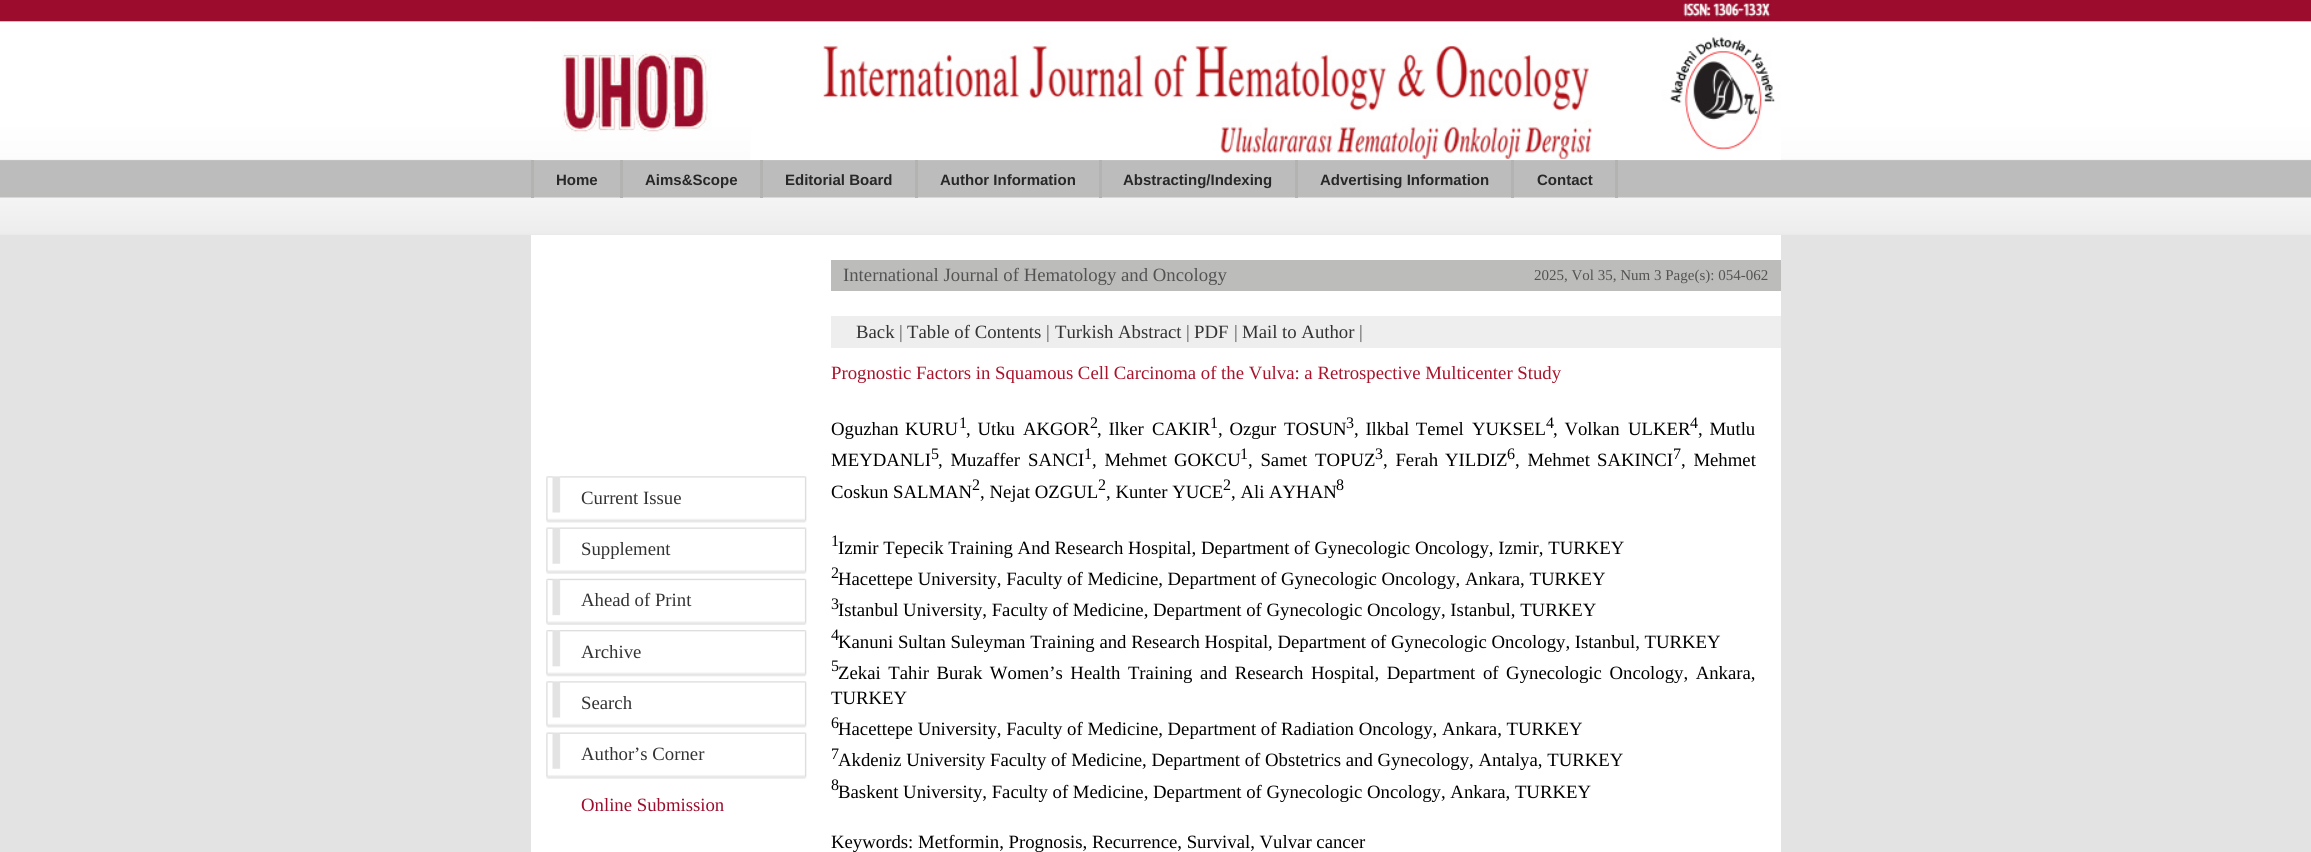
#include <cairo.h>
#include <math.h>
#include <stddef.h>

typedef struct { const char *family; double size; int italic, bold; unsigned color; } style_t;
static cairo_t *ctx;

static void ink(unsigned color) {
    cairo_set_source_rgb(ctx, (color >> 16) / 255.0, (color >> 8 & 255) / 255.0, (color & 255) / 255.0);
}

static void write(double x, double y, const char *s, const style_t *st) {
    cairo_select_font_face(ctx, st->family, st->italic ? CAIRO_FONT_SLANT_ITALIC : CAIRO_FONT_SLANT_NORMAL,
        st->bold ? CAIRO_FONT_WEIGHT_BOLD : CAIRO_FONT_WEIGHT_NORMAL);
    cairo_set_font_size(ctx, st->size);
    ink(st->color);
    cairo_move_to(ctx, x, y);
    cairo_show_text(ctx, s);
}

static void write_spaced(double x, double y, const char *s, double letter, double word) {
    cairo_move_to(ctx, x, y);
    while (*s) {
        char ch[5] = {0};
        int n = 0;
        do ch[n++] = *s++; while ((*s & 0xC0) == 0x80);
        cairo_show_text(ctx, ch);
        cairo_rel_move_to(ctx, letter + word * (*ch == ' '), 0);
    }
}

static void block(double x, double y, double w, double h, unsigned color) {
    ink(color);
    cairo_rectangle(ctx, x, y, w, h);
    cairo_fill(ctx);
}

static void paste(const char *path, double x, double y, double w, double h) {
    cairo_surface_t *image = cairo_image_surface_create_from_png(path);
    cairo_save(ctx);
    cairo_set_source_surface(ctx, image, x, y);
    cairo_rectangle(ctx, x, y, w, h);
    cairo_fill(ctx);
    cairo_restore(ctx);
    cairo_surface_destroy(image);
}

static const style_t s1 = {"Liberation Sans", 15, 0, 1, 0x282828};
static const style_t s2 = {"Liberation Serif", 18.75, 0, 0, 0x333333};
static const style_t s3 = {"Liberation Serif", 18.75, 0, 0, 0x9c0c2d};
static const style_t s4 = {"Liberation Serif", 18.75, 0, 0, 0x535353};
static const style_t s5 = {"Liberation Serif", 15, 0, 0, 0x535353};
static const style_t s6 = {"Liberation Serif", 18.75, 0, 0, 0xaa132c};
static const style_t s7 = {"Liberation Serif", 18.75, 0, 0, 0x000000};
static const style_t s8 = {"Liberation Serif", 16, 0, 0, 0x000000};

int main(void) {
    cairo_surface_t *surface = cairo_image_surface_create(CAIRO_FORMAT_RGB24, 2311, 852);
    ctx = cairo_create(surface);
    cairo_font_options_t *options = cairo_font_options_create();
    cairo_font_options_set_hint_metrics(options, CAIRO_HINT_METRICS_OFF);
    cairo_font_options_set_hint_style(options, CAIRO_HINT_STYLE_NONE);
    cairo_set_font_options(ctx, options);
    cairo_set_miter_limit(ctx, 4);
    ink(0xe3e3e3);
    cairo_paint(ctx);
    paste("pic1.png", 0, 0, 2311, 235);
    paste("pic2.png", 532, 0, 1249, 160);
    block(620, 160, 3, 38, 0xb3b3b2);
    block(531, 160, 3, 38, 0xb3b3b2);
    write(556, 185, "Home", &s1);
    block(760, 160, 3, 38, 0xb3b3b2);
    write(645, 185, "Aims&Scope", &s1);
    block(915, 160, 3, 38, 0xb3b3b2);
    write(785, 185, "Editorial Board", &s1);
    block(1099, 160, 3, 38, 0xb3b3b2);
    write(940, 185, "Author Information", &s1);
    block(1295, 160, 3, 38, 0xb3b3b2);
    write(1123, 185, "Abstracting/Indexing", &s1);
    block(1511, 160, 3, 38, 0xb3b3b2);
    write(1320, 185, "Advertising Information", &s1);
    block(1615, 160, 3, 38, 0xb3b3b2);
    write(1537, 185, "Contact", &s1);
    block(531, 235, 1250, 617, 0xffffff);
    paste("pic3.png", 546, 476, 261, 47);
    write(581, 504, "Current Issue", &s2);
    paste("pic4.png", 546, 527, 261, 47);
    write(581, 555, "Supplement", &s2);
    paste("pic5.png", 546, 578, 261, 47);
    write(581, 606, "Ahead of Print", &s2);
    paste("pic6.png", 546, 630, 261, 47);
    write(581, 658, "Archive", &s2);
    paste("pic3.png", 546, 681, 261, 47);
    write(581, 709, "Search", &s2);
    paste("pic4.png", 546, 732, 261, 47);
    write(581, 760, "Author’s Corner", &s2);
    write(581, 811, "Online Submission", &s3);
    block(831, 260, 950, 31, 0xbcbcbb);
    write(843, 281, "International Journal of Hematology and Oncology", &s4);
    write(1534, 280, "2025, Vol 35, Num 3 Page(s): 054-062", &s5);
    block(831, 316, 950, 32, 0xeeeeee);
    write(856, 338, "Back", &s2);
    write(899, 338, "|", &s4);
    write(907, 338, "Table of Contents", &s2);
    write(1046, 338, "|", &s4);
    write(1055, 338, "Turkish Abstract", &s2);
    write(1186, 338, "|", &s4);
    write(1194, 338, "PDF", &s2);
    write(1234, 338, "|", &s4);
    write(1242, 338, "Mail to Author", &s2);
    write(1359, 338, "|", &s4);
    write(831, 379, "Prognostic Factors in Squamous Cell Carcinoma of the Vulva: a Retrospective Multicenter Study", &s6);
    write(831, 435, "Oguzhan", &s7);
    write(905, 435, "KURU", &s7);
    write(959, 428, "1", &s8);
    cairo_set_font_size(ctx, 18.75);
    write_spaced(966, 435, ", Utku", 0, 2);
    write(1023, 435, "AKGOR", &s7);
    write(1090, 428, "2", &s8);
    cairo_set_font_size(ctx, 18.75);
    write_spaced(1097, 435, ", Ilker", 0, 2);
    write(1152, 435, "CAKIR", &s7);
    write(1210, 428, "1", &s8);
    cairo_set_font_size(ctx, 18.75);
    write_spaced(1218, 435, ", Ozgur", 0, 2);
    write(1284, 435, "TOSUN", &s7);
    write(1346, 428, "3", &s8);
    cairo_set_font_size(ctx, 18.75);
    write_spaced(1354, 435, ", Ilkbal Temel", 0, 2);
    write(1472, 435, "YUKSEL", &s7);
    write(1546, 428, "4", &s8);
    cairo_set_font_size(ctx, 18.75);
    write_spaced(1553, 435, ", Volkan", 0, 2);
    write(1628, 435, "ULKER", &s7);
    write(1690, 428, "4", &s8);
    cairo_set_font_size(ctx, 18.75);
    write_spaced(1698, 435, ", Mutlu", 0, 2);
    write(831, 466, "MEYDANLI", &s7);
    write(931, 459, "5", &s8);
    cairo_set_font_size(ctx, 18.75);
    write_spaced(938, 466, ", Muzaffer", 0, 3);
    write(1028, 466, "SANCI", &s7);
    write(1084, 459, "1", &s8);
    cairo_set_font_size(ctx, 18.75);
    write_spaced(1092, 466, ", Mehmet", 0, 3);
    write(1174, 466, "GOKCU", &s7);
    write(1240, 459, "1", &s8);
    cairo_set_font_size(ctx, 18.75);
    write_spaced(1248, 466, ", Samet", 0, 3);
    write(1315, 466, "TOPUZ", &s7);
    write(1375, 459, "3", &s8);
    cairo_set_font_size(ctx, 18.75);
    write_spaced(1383, 466, ", Ferah", 0, 3);
    write(1445, 466, "YILDIZ", &s7);
    write(1507, 459, "6", &s8);
    cairo_set_font_size(ctx, 18.75);
    write_spaced(1515, 466, ", Mehmet", 0, 3);
    write(1597, 466, "SAKINCI", &s7);
    write(1673, 459, "7", &s8);
    cairo_set_font_size(ctx, 18.75);
    write_spaced(1681, 466, ", Mehmet", 0, 3);
    write(831, 498, "Coskun SALMAN", &s7);
    write(972, 490, "2", &s8);
    write(980, 498, ", Nejat OZGUL", &s7);
    write(1098, 490, "2", &s8);
    write(1106, 498, ", Kunter YUCE", &s7);
    write(1223, 490, "2", &s8);
    write(1231, 498, ", Ali AYHAN", &s7);
    write(1336, 490, "8", &s8);
    write(831, 546, "1", &s8);
    write(838, 554, "Izmir Tepecik Training And Research Hospital, Department of Gynecologic Oncology, Izmir, TURKEY", &s7);
    write(831, 578, "2", &s8);
    write(838, 585, "Hacettepe University, Faculty of Medicine, Department of Gynecologic Oncology, Ankara, TURKEY", &s7);
    write(831, 609, "3", &s8);
    write(838, 616, "Istanbul University, Faculty of Medicine, Department of Gynecologic Oncology, Istanbul, TURKEY", &s7);
    write(831, 640, "4", &s8);
    write(838, 648, "Kanuni Sultan Suleyman Training and Research Hospital, Department of Gynecologic Oncology, Istanbul, TURKEY", &s7);
    write(831, 671, "5", &s8);
    cairo_set_font_size(ctx, 18.75);
    write_spaced(838, 679, "Zekai Tahir Burak Women’s Health Training and Research Hospital, Department of Gynecologic Oncology, Ankara,", 0, 2.9);
    write(831, 704, "TURKEY", &s7);
    write(831, 728, "6", &s8);
    write(838, 735, "Hacettepe University, Faculty of Medicine, Department of Radiation Oncology, Ankara, TURKEY", &s7);
    write(831, 759, "7", &s8);
    write(838, 766, "Akdeniz University Faculty of Medicine, Department of Obstetrics and Gynecology, Antalya, TURKEY", &s7);
    write(831, 790, "8", &s8);
    write(838, 798, "Baskent University, Faculty of Medicine, Department of Gynecologic Oncology, Ankara, TURKEY", &s7);
    write(831, 848, "Keywords: Metformin, Prognosis, Recurrence, Survival, Vulvar cancer", &s7);
    cairo_surface_write_to_png(surface, "screenshot.png");
    cairo_font_options_destroy(options);
    cairo_destroy(ctx);
    cairo_surface_destroy(surface);
    return 0;
}
